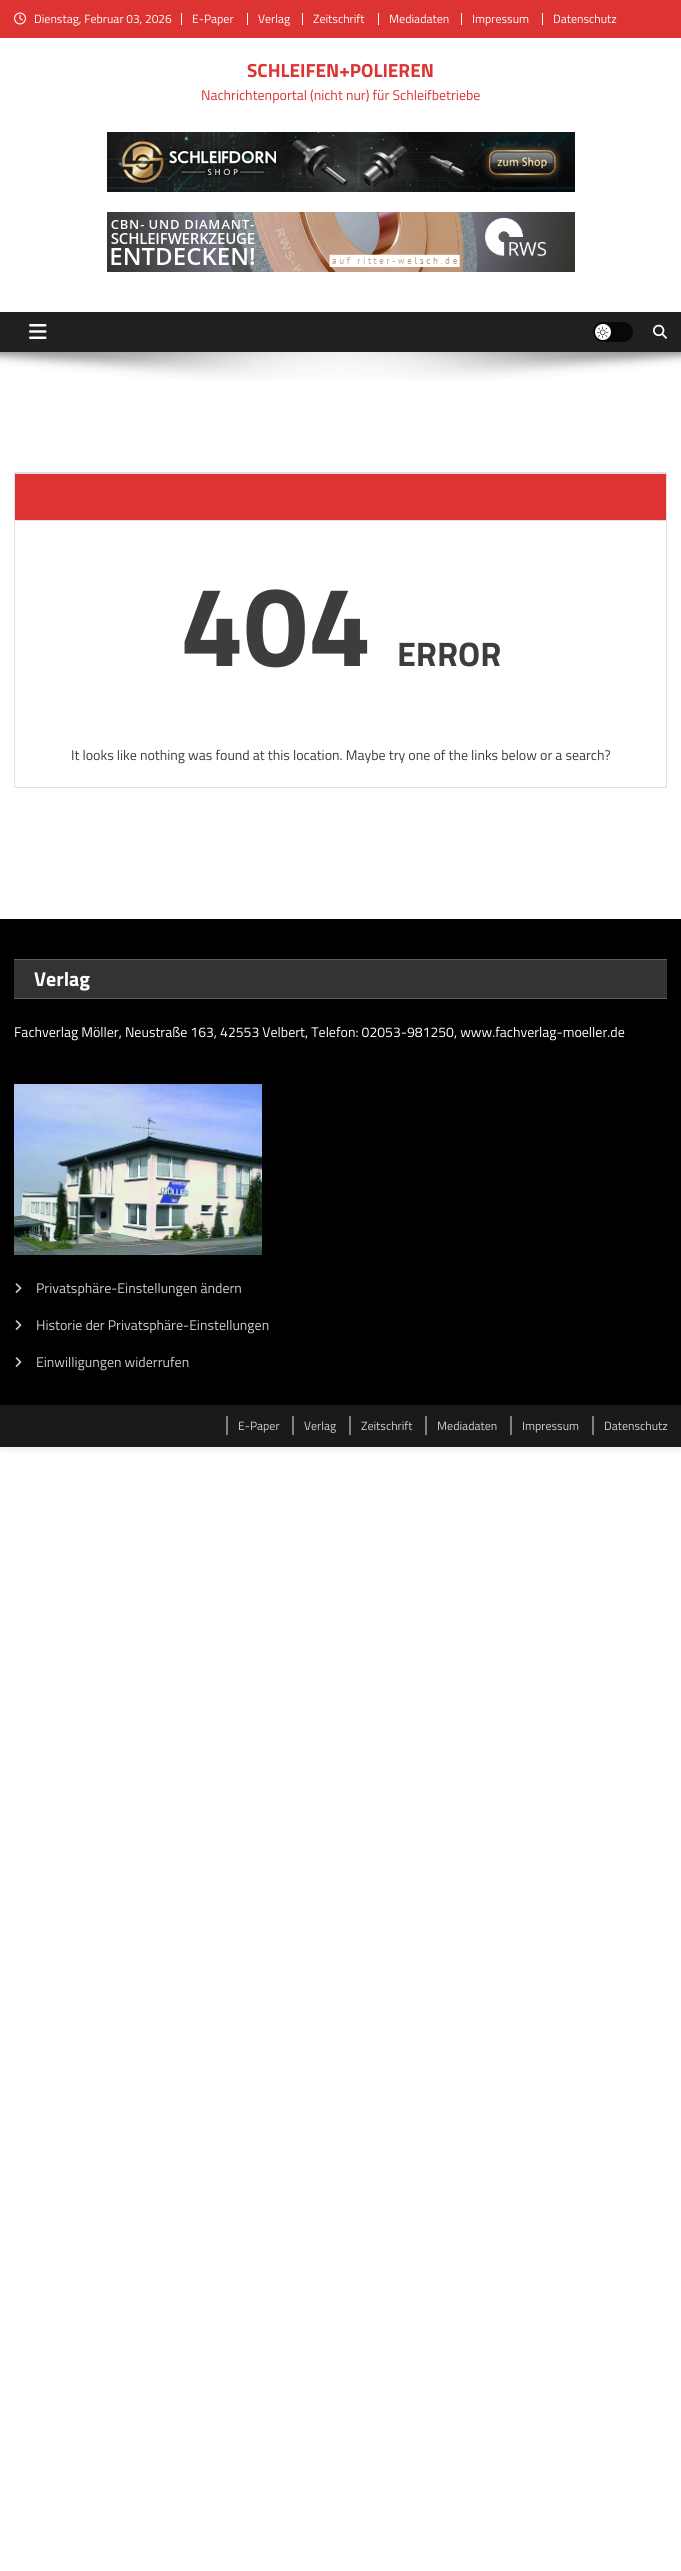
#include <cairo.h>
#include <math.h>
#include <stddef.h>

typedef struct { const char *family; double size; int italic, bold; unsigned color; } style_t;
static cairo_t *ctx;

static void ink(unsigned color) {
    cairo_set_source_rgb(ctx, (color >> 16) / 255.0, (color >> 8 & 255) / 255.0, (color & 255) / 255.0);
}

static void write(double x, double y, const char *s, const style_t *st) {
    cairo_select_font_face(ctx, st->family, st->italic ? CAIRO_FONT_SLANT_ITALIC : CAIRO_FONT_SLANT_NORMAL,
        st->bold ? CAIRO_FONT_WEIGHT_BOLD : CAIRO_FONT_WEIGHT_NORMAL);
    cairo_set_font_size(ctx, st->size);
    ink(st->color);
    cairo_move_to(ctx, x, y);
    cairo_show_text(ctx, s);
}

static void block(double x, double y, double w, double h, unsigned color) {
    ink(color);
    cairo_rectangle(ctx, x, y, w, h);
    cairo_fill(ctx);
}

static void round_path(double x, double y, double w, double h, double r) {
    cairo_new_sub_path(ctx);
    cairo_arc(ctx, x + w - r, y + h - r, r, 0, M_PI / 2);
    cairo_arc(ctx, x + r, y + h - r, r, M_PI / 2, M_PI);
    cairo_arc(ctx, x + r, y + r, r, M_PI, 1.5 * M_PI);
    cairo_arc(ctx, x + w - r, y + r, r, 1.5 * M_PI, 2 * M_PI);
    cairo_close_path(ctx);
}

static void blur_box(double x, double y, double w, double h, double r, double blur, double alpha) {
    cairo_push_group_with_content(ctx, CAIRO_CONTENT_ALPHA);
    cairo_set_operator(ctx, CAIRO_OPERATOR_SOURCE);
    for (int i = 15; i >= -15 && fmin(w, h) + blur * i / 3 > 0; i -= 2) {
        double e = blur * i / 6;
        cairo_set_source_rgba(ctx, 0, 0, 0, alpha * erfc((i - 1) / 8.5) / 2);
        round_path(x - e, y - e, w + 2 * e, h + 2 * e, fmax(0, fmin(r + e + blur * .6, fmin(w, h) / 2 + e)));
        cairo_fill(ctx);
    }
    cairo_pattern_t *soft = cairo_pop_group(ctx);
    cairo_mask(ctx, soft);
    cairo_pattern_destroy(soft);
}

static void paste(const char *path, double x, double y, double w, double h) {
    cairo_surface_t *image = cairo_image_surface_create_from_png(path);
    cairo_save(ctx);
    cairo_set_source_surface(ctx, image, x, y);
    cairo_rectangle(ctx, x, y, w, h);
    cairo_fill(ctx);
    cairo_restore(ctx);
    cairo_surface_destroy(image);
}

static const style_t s1 = {"Titillium Web", 12, 0, 0, 0xffffff};
static const style_t s2 = {"Titillium Web", 19, 0, 1, 0xdd3333};
static const style_t s3 = {"Titillium Web", 14, 0, 0, 0xdd3333};
static const style_t s4 = {"Titillium Web", 114, 0, 1, 0x3d3d3d};
static const style_t s5 = {"Titillium Web", 34, 0, 1, 0x3d3d3d};
static const style_t s6 = {"Titillium Web", 14, 0, 0, 0x3d3d3d};
static const style_t s7 = {"Titillium Web", 20, 0, 1, 0xffffff};
static const style_t s8 = {"Titillium Web", 14, 0, 0, 0xffffff};
static const style_t s9 = {"Titillium Web", 14, 0, 0, 0xcfcfcf};
static const style_t s10 = {"Titillium Web", 12, 0, 0, 0xcfcfcf};

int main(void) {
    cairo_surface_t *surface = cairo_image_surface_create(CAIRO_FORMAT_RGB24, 681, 2571);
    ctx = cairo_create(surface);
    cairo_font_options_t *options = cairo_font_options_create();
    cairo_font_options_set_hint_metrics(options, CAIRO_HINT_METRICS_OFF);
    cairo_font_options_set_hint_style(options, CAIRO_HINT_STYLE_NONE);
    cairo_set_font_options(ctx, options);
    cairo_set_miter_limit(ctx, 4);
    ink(0xffffff);
    cairo_paint(ctx);
    cairo_save(ctx);
    cairo_rectangle(ctx, 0, 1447, 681, 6);
    cairo_clip(ctx);
    ink(0x000000);
    blur_box(0, 0, 681, 1447, 0, 7.5, 0.1);
    cairo_restore(ctx);
    block(0, 0, 681, 38, 0xdd3333);
    paste("pic1.png", 14, 12, 12, 13);
    write(34, 23, "Dienstag, Februar 03, 2026", &s1);
    block(181, 13, 1, 12, 0xffffff);
    write(192, 23, "E-Paper", &s1);
    block(247, 13, 1, 12, 0xffffff);
    write(258, 23, "Verlag", &s1);
    block(302, 13, 1, 12, 0xffffff);
    write(313, 23, "Zeitschrift", &s1);
    block(378, 13, 1, 12, 0xffffff);
    write(389, 23, "Mediadaten", &s1);
    block(461, 13, 1, 12, 0xffffff);
    write(472, 23, "Impressum", &s1);
    block(542, 13, 1, 12, 0xffffff);
    write(553, 23, "Datenschutz", &s1);
    write(247, 77, "SCHLEIFEN+POLIEREN", &s2);
    write(201, 100, "Nachrichtenportal (nicht nur) für Schleifbetriebe", &s3);
    paste("pic2.png", 107, 132, 468, 60);
    paste("pic3.png", 107, 212, 468, 60);
    block(0, 312, 681, 40, 0x212121);
    paste("pic4.png", 29, 324, 18, 15);
    ink(0x080808);
    round_path(593, 322, 40, 20, 10);
    cairo_fill(ctx);
    ink(0xffffff);
    cairo_arc(ctx, 603, 332, 8, 0, 2 * M_PI);
    cairo_fill(ctx);
    paste("pic5.png", 597, 326, 12, 12);
    paste("pic6.png", 653, 324, 14, 15);
    paste("pic7.png", 0, 352, 681, 28);
    cairo_rectangle(ctx, 14.5, 472.5, 652, 315);
    ink(0xe1e1e1);
    cairo_set_line_width(ctx, 1);
    cairo_stroke(ctx);
    block(15, 474, 651, 46, 0xdd3333);
    block(15, 473, 651, 1, 0xe1e1e1);
    block(15, 520, 651, 1, 0xe1e1e1);
    write(180, 666, "404", &s4);
    write(397, 666, "ERROR", &s5);
    write(71, 760, "It looks like nothing was found at this location. Maybe try one of the links below or a search?", &s6);
    block(0, 919, 681, 486, 0x000000);
    block(14, 960, 653, 38, 0x333333);
    block(14, 959, 653, 1, 0x5c5c5c);
    block(14, 998, 653, 1, 0x5c5c5c);
    write(34, 986, "Verlag", &s7);
    write(14, 1037, "Fachverlag Möller, Neustraße 163, 42553 Velbert, Telefon: 02053-981250, www.fachverlag-moeller.de", &s8);
    paste("pic8.png", 14, 1084, 248, 171);
    paste("pic9.png", 15, 1283, 7, 10);
    write(36, 1293, "Privatsphäre-Einstellungen ändern", &s9);
    paste("pic9.png", 15, 1320, 7, 10);
    write(36, 1330, "Historie der Privatsphäre-Einstellungen", &s9);
    paste("pic9.png", 15, 1357, 7, 10);
    write(36, 1367, "Einwilligungen widerrufen", &s9);
    block(0, 1405, 681, 42, 0x1a1a1a);
    write(238, 1430, "E-Paper", &s10);
    block(226, 1416, 2, 19, 0x7f7f7f);
    write(304, 1430, "Verlag", &s10);
    block(292, 1416, 2, 19, 0x7f7f7f);
    write(361, 1430, "Zeitschrift", &s10);
    block(349, 1416, 2, 19, 0x7f7f7f);
    write(437, 1430, "Mediadaten", &s10);
    block(425, 1416, 2, 19, 0x7f7f7f);
    write(522, 1430, "Impressum", &s10);
    block(510, 1416, 2, 19, 0x7f7f7f);
    write(604, 1430, "Datenschutz", &s10);
    block(592, 1416, 2, 19, 0x7f7f7f);
    cairo_surface_write_to_png(surface, "screenshot.png");
    cairo_font_options_destroy(options);
    cairo_destroy(ctx);
    cairo_surface_destroy(surface);
    return 0;
}
